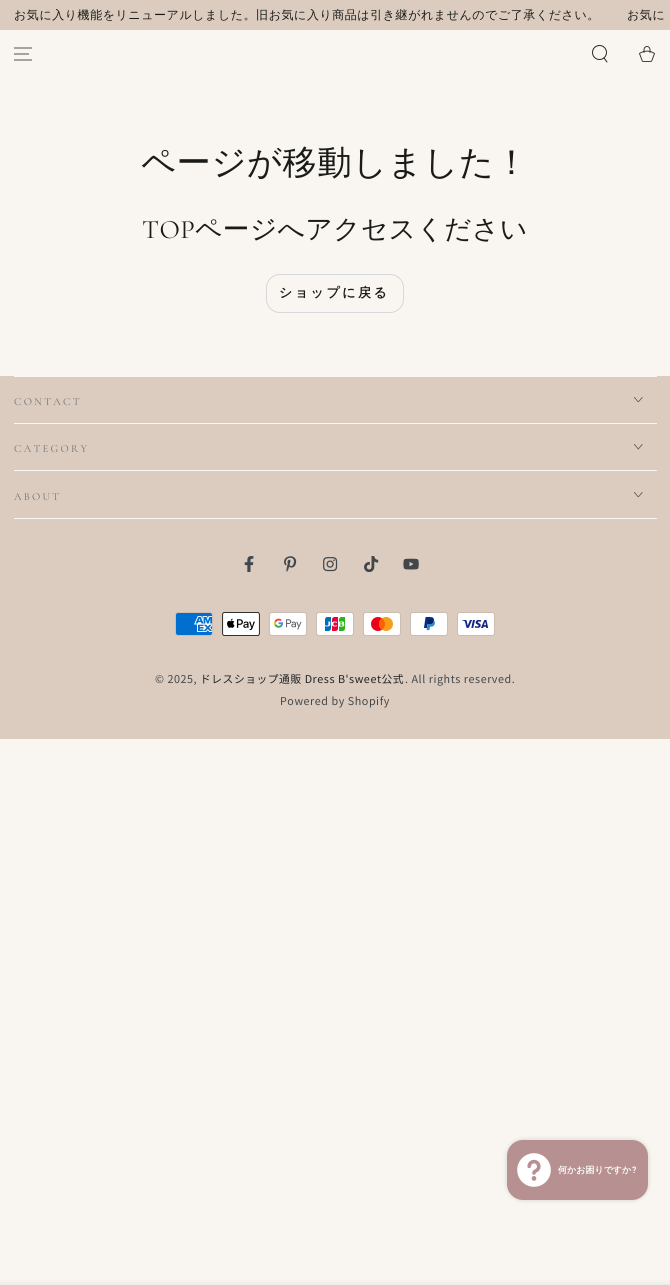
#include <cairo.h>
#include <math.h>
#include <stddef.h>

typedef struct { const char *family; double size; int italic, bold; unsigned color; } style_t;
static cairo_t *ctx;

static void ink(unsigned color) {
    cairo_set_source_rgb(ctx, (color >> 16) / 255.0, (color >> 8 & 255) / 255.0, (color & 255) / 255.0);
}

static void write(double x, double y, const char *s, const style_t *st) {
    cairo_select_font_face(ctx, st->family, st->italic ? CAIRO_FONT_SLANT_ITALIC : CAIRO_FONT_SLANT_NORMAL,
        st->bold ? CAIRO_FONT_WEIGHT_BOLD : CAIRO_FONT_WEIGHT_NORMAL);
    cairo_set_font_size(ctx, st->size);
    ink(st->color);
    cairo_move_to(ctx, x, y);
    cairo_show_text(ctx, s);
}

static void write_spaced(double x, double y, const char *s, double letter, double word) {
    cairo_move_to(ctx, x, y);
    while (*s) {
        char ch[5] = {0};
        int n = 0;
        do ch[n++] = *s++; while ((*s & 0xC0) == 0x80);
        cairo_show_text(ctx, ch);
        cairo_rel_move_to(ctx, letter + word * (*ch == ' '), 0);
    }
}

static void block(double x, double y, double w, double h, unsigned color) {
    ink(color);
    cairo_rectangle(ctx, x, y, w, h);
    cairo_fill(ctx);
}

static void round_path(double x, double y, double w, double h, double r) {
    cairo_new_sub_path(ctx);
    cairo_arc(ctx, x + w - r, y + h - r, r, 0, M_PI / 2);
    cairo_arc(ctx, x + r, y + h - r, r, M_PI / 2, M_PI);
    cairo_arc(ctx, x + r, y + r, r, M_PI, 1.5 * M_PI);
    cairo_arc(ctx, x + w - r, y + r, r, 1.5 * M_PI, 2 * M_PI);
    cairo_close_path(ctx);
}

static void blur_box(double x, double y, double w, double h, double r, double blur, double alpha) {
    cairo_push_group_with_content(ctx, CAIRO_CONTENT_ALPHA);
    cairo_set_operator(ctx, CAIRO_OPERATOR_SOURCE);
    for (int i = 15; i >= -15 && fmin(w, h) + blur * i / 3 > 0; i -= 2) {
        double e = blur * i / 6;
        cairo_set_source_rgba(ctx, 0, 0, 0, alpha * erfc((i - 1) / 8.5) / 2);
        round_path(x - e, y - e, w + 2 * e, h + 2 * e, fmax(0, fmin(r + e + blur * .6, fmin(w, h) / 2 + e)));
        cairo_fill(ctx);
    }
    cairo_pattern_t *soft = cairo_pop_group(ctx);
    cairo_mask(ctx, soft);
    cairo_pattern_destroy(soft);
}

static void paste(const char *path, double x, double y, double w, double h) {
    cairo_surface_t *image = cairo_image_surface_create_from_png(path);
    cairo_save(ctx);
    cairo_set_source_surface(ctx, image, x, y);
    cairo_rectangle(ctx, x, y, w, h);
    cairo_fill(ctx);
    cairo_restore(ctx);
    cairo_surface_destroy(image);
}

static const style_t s1 = {"WenQuanYi Zen Hei", 9, 0, 1, 0xffffff};
static const style_t s2 = {"Roboto SemiBold", 9, 0, 0, 0xffffff};

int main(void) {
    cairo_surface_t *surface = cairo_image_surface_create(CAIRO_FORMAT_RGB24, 670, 1285);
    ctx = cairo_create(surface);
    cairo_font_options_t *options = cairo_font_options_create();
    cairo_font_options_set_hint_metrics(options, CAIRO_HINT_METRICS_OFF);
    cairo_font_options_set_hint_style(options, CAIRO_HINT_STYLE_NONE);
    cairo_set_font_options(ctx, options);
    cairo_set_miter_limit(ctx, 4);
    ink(0xf9f5f0);
    cairo_paint(ctx);
    block(0, 0, 670, 30, 0xdcccbf);
    cairo_select_font_face(ctx, "WenQuanYi Zen Hei Medium", CAIRO_FONT_SLANT_NORMAL, CAIRO_FONT_WEIGHT_NORMAL);
    cairo_set_font_size(ctx, 12);
    ink(0x1a1b18);
    write_spaced(14, 19, "お気に入り機能をリニューアルしました。旧お気に入り商品は引き継がれませんのでご了承ください。", 0.55, 0);
    write_spaced(627, 19, "お気に", 0.55, 0);
    cairo_new_path(ctx);
    cairo_move_to(ctx, 14, 60);
    cairo_line_to(ctx, 32, 60);
    cairo_move_to(ctx, 14, 54);
    cairo_line_to(ctx, 29, 54);
    cairo_move_to(ctx, 14, 48);
    cairo_line_to(ctx, 32, 48);
    ink(0x282828);
    cairo_set_line_width(ctx, 0.8);
    cairo_stroke(ctx);
    cairo_arc(ctx, 599.5, 52.5, 7, 0, 2 * M_PI);
    cairo_set_line_width(ctx, 1);
    cairo_stroke(ctx);
    cairo_new_path(ctx);
    cairo_move_to(ctx, 604, 58);
    cairo_line_to(ctx, 607, 62);
    cairo_set_line_cap(ctx, CAIRO_LINE_CAP_ROUND);
    cairo_stroke(ctx);
    paste("pic1.png", 639, 46, 16, 16);
    cairo_set_font_size(ctx, 34.25);
    ink(0x1a1b18);
    write_spaced(141, 174, "ページが移動しました！", 0.55, 0);
    cairo_select_font_face(ctx, "Cormorant Garamond", CAIRO_FONT_SLANT_NORMAL, CAIRO_FONT_WEIGHT_NORMAL);
    cairo_set_font_size(ctx, 26.6);
    write_spaced(142, 238, "TOP", 0.55, 0);
    cairo_select_font_face(ctx, "WenQuanYi Zen Hei Medium", CAIRO_FONT_SLANT_NORMAL, CAIRO_FONT_WEIGHT_NORMAL);
    write_spaced(195, 238, "ページへアクセスください", 0.55, 0);
    round_path(266.45, 274.45, 137.1, 38.1, 13.55);
    ink(0xd2d5d9);
    cairo_set_line_width(ctx, 0.9);
    cairo_set_line_cap(ctx, CAIRO_LINE_CAP_BUTT);
    cairo_stroke(ctx);
    cairo_select_font_face(ctx, "WenQuanYi Zen Hei", CAIRO_FONT_SLANT_NORMAL, CAIRO_FONT_WEIGHT_BOLD);
    cairo_set_font_size(ctx, 13);
    ink(0x1a1b18);
    write_spaced(279, 297, "ショップに戻る", 2.5, 0);
    block(0, 376, 670, 363, 0xdcccbf);
    block(14, 376, 643, 1, 0xf9f5f0);
    block(14, 423, 643, 1, 0xf9f5f0);
    cairo_select_font_face(ctx, "Cormorant Garamond", CAIRO_FONT_SLANT_NORMAL, CAIRO_FONT_WEIGHT_NORMAL);
    cairo_set_font_size(ctx, 10.75);
    ink(0x6b7177);
    write_spaced(14, 405, "CONTACT", 2.25, 0);
    paste("pic2.png", 634, 397, 9, 5);
    block(14, 470, 643, 1, 0xf9f5f0);
    ink(0x6b7177);
    write_spaced(14, 452, "CATEGORY", 2.25, 0);
    paste("pic3.png", 634, 444, 9, 6);
    block(14, 518, 643, 1, 0xf9f5f0);
    ink(0x6b7177);
    write_spaced(14, 500, "ABOUT", 2.25, 0);
    paste("pic2.png", 634, 492, 9, 5);
    paste("pic4.png", 244, 556, 10, 16);
    paste("pic5.png", 284, 556, 13, 16);
    paste("pic6.png", 323, 557, 15, 15);
    paste("pic7.png", 364, 556, 15, 16);
    paste("pic8.png", 403, 558, 16, 12);
    paste("pic9.png", 175, 612, 38, 24);
    paste("pic10.png", 222, 612, 38, 24);
    paste("pic11.png", 269, 612, 38, 24);
    paste("pic12.png", 316, 612, 38, 24);
    paste("pic13.png", 363, 612, 38, 24);
    paste("pic14.png", 410, 612, 38, 24);
    paste("pic15.png", 457, 612, 38, 24);
    cairo_select_font_face(ctx, "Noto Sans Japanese", CAIRO_FONT_SLANT_NORMAL, CAIRO_FONT_WEIGHT_NORMAL);
    ink(0x42474c);
    write_spaced(155, 683, "© 2025,", 0.55, 0);
    ink(0x212326);
    write_spaced(200, 683, "ドレスショップ通販 Dress B'sweet公式", 0.55, 0);
    ink(0x42474c);
    write_spaced(405, 683, ". All rights reserved.", 0.55, 0);
    write_spaced(280, 705, "Powered by Shopify", 0.55, 0);
    ink(0x000000);
    blur_box(507, 1140, 141, 60, 16, 2.5, 0.15);
    ink(0xb79191);
    round_path(507, 1140, 141, 60, 16);
    cairo_fill(ctx);
    paste("pic16.png", 517, 1153, 34, 34);
    write(558, 1173, "何かお困りですか", &s1);
    write(632, 1173, "?", &s2);
    ink(0x212326);
    blur_box(0, 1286, 670, 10, 0, 3.5, 0.15);
    cairo_surface_write_to_png(surface, "screenshot.png");
    cairo_font_options_destroy(options);
    cairo_destroy(ctx);
    cairo_surface_destroy(surface);
    return 0;
}
